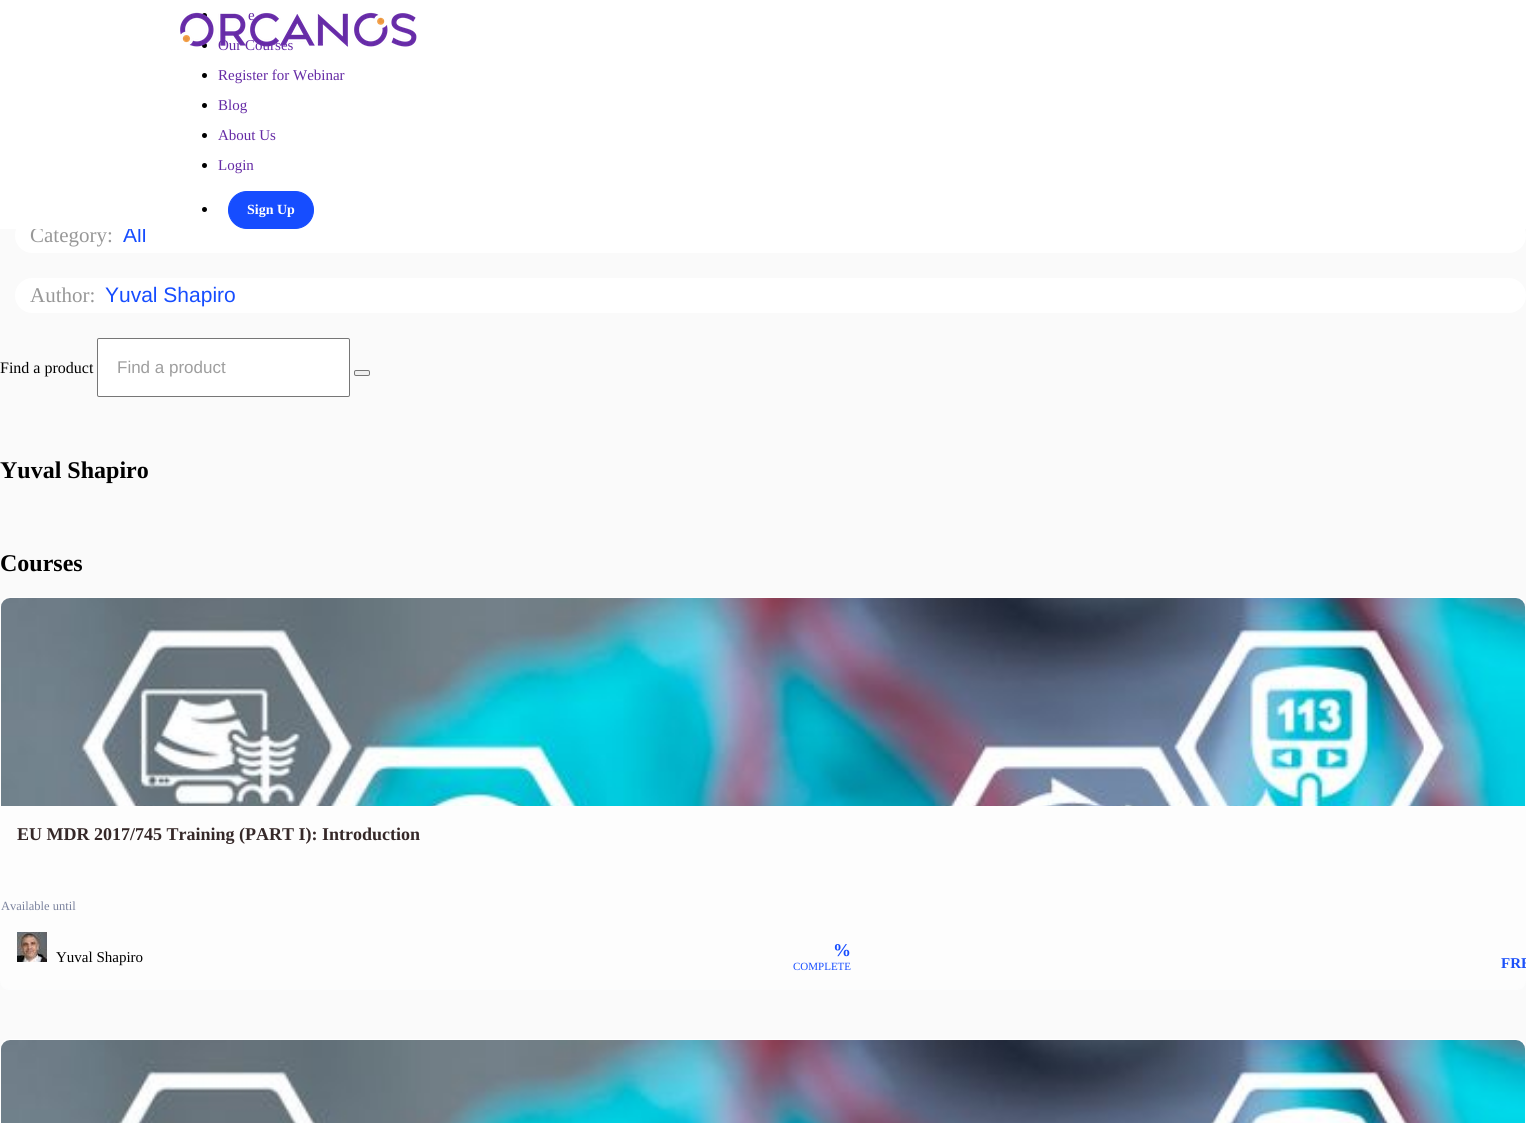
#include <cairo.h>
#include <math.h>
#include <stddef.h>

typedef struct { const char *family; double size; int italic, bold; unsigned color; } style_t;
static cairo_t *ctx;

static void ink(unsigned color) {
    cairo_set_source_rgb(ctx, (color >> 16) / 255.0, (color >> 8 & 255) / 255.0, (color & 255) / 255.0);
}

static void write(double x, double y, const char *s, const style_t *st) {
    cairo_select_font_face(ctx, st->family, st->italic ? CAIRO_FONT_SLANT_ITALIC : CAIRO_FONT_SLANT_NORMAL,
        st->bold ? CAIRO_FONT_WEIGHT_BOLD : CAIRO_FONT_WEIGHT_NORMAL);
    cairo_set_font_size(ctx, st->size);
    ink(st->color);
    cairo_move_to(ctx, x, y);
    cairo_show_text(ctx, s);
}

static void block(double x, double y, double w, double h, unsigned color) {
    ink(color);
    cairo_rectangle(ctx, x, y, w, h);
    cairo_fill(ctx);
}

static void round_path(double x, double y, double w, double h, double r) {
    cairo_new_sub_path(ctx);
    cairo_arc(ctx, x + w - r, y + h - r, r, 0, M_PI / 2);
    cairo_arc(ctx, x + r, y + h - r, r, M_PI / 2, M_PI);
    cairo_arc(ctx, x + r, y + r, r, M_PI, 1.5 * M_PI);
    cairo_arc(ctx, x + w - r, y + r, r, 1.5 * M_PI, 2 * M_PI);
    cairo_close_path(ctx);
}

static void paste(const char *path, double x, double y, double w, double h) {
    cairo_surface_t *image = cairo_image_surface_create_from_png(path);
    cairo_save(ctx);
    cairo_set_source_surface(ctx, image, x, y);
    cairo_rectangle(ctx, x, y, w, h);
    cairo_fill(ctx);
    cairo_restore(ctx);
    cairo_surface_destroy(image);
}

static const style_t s1 = {"Liberation Serif", 21, 0, 0, 0x989898};
static const style_t s2 = {"Liberation Sans", 21, 0, 0, 0x164dff};
static const style_t s3 = {"Liberation Serif", 15, 0, 0, 0x652aa5};
static const style_t s4 = {"Liberation Serif", 14, 0, 1, 0xffffff};
static const style_t s5 = {"Liberation Serif", 16, 0, 0, 0x000000};
static const style_t s6 = {"Liberation Sans", 17, 0, 0, 0x9e9e9e};
static const style_t s7 = {"Liberation Serif", 24, 0, 1, 0x000000};
static const style_t s8 = {"Liberation Serif", 18, 0, 1, 0x352828};
static const style_t s9 = {"Liberation Serif", 12.5, 0, 0, 0x7a829d};
static const style_t s10 = {"Liberation Serif", 15, 0, 0, 0x000000};
static const style_t s11 = {"Liberation Serif", 18, 0, 1, 0x164dff};
static const style_t s12 = {"Liberation Serif", 11, 0, 0, 0x164dff};
static const style_t s13 = {"Liberation Serif", 15, 0, 1, 0x1c50f9};

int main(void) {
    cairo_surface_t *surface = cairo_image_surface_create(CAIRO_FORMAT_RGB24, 1526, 1123);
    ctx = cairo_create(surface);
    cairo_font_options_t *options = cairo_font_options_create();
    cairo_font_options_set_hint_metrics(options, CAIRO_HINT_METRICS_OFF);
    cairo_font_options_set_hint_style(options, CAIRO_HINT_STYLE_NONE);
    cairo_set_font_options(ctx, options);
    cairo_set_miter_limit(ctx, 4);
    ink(0xfafafa);
    cairo_paint(ctx);
    ink(0xffffff);
    round_path(15, 218, 1511, 35, 17.5);
    cairo_fill(ctx);
    write(30, 242, "Category:", &s1);
    write(123, 242, "All", &s2);
    block(0, 0, 1526, 229, 0xffffff);
    ink(0x000000);
    cairo_new_path(ctx);
    cairo_arc(ctx, 204.5, 15.5, 2.5, 0, 2 * M_PI);
    cairo_fill(ctx);
    write(248, 20, "e", &s3);
    ink(0x000000);
    cairo_new_path(ctx);
    cairo_arc(ctx, 204.5, 45.5, 2.5, 0, 2 * M_PI);
    cairo_fill(ctx);
    write(218, 50, "Our Courses", &s3);
    paste("pic1.png", 180, 12, 237, 35);
    ink(0x000000);
    cairo_arc(ctx, 204.5, 75.5, 2.5, 0, 2 * M_PI);
    cairo_fill(ctx);
    write(218, 80, "Register for Webinar", &s3);
    ink(0x000000);
    cairo_new_path(ctx);
    cairo_arc(ctx, 204.5, 105.5, 2.5, 0, 2 * M_PI);
    cairo_fill(ctx);
    write(218, 110, "Blog", &s3);
    ink(0x000000);
    cairo_new_path(ctx);
    cairo_arc(ctx, 204.5, 135.5, 2.5, 0, 2 * M_PI);
    cairo_fill(ctx);
    write(218, 140, "About Us", &s3);
    ink(0x000000);
    cairo_new_path(ctx);
    cairo_arc(ctx, 204.5, 165.5, 2.5, 0, 2 * M_PI);
    cairo_fill(ctx);
    write(218, 170, "Login", &s3);
    ink(0x000000);
    cairo_new_path(ctx);
    cairo_arc(ctx, 204.5, 209.5, 2.5, 0, 2 * M_PI);
    cairo_fill(ctx);
    ink(0x164dff);
    round_path(228.5, 191.5, 85, 37, 18.5);
    cairo_fill_preserve(ctx);
    cairo_set_line_width(ctx, 1);
    cairo_stroke(ctx);
    write(247, 214, "Sign Up", &s4);
    round_path(15, 278, 1511, 35, 17.5);
    cairo_fill(ctx);
    write(30, 302, "Author:", &s1);
    write(105, 302, "Yuval Shapiro", &s2);
    write(0, 373, "Find a product", &s5);
    ink(0xffffff);
    round_path(97.5, 338.5, 252, 58, 1.5);
    cairo_fill_preserve(ctx);
    ink(0x767676);
    cairo_stroke(ctx);
    write(117, 373, "Find a product", &s6);
    ink(0xefefef);
    round_path(354.5, 370.5, 15, 5, 1.5);
    cairo_fill_preserve(ctx);
    ink(0x767676);
    cairo_stroke(ctx);
    write(0, 478, "Yuval Shapiro", &s7);
    write(0, 571, "Courses", &s7);
    ink(0xfcfdfe);
    cairo_new_path(ctx);
    cairo_move_to(ctx, 0, 980);
    cairo_curve_to(ctx, 0, 985, 3, 990, 9, 990);
    cairo_line_to(ctx, 1517, 990);
    cairo_curve_to(ctx, 1523, 990, 1526, 985, 1526, 980);
    cairo_curve_to(ctx, 1526, 985, 1522, 989, 1517, 989);
    cairo_line_to(ctx, 9, 989);
    cairo_curve_to(ctx, 4, 989, 0, 985, 0, 980);
    cairo_close_path(ctx);
    cairo_fill(ctx);
    ink(0xfdfdfd);
    round_path(0, 597, 1526, 392, 9);
    cairo_fill(ctx);
    paste("pic2.png", 1, 598, 1524, 208);
    write(17, 840, "EU MDR 2017/745 Training (PART I): Introduction", &s8);
    write(1, 910, "Available until", &s9);
    paste("pic3.png", 17, 932, 30, 30);
    write(56, 962, "Yuval Shapiro", &s10);
    write(833, 956, "%", &s11);
    write(793, 970, "COMPLETE", &s12);
    write(1501, 968, "FRE", &s13);
    cairo_set_source_rgba(ctx, 1, 1, 1, 0.7);
    round_path(0, 1039, 1526, 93, 9);
    cairo_fill(ctx);
    paste("pic4.png", 1, 1040, 1524, 83);
    cairo_surface_write_to_png(surface, "screenshot.png");
    cairo_font_options_destroy(options);
    cairo_destroy(ctx);
    cairo_surface_destroy(surface);
    return 0;
}
